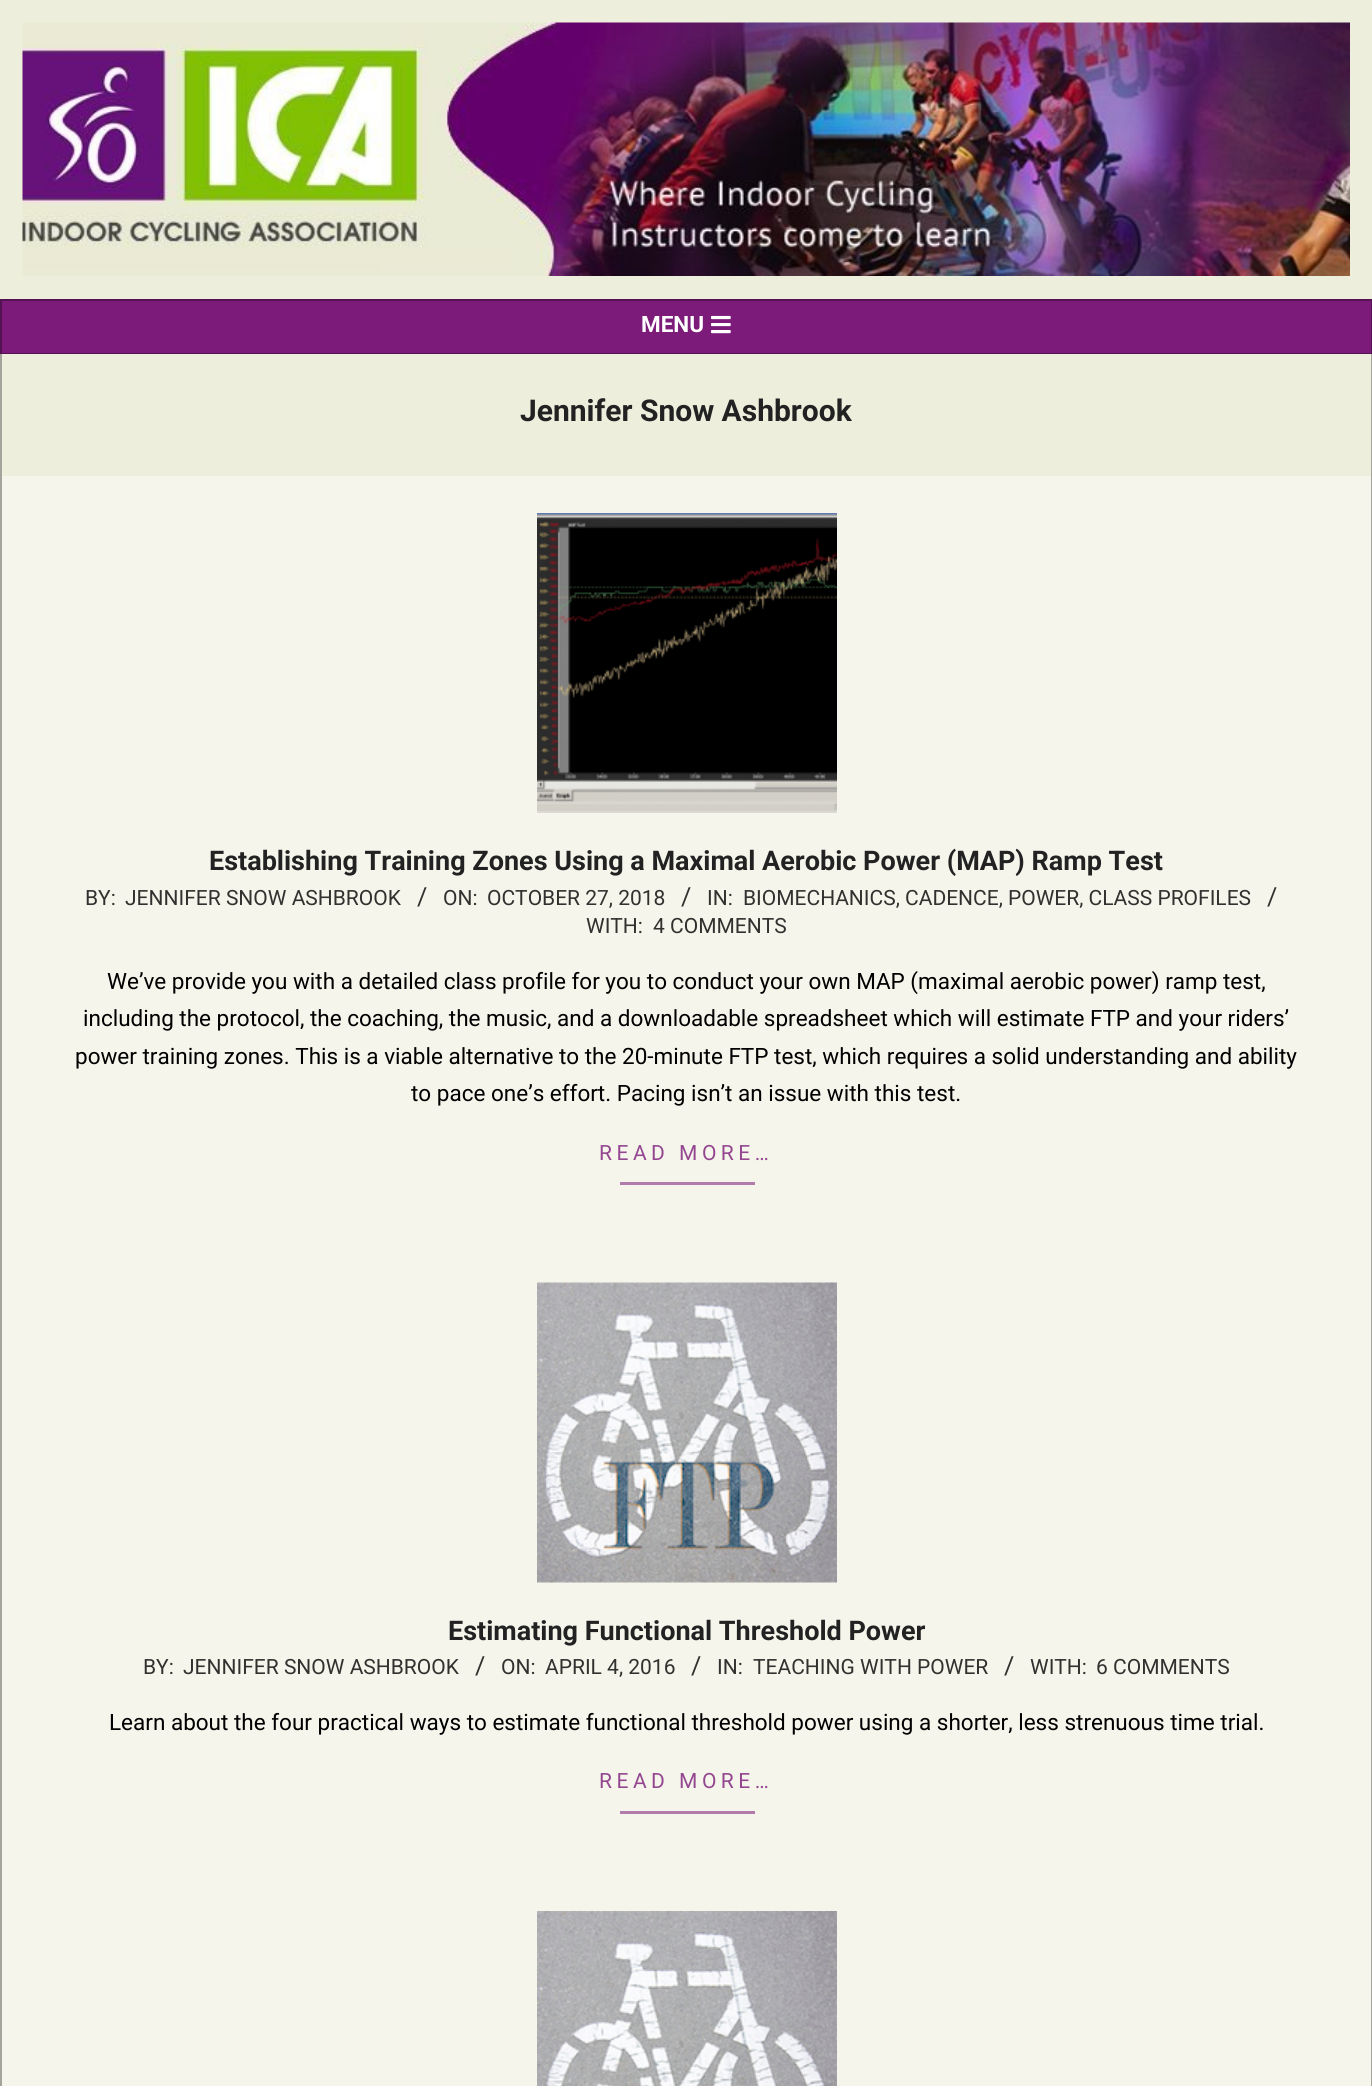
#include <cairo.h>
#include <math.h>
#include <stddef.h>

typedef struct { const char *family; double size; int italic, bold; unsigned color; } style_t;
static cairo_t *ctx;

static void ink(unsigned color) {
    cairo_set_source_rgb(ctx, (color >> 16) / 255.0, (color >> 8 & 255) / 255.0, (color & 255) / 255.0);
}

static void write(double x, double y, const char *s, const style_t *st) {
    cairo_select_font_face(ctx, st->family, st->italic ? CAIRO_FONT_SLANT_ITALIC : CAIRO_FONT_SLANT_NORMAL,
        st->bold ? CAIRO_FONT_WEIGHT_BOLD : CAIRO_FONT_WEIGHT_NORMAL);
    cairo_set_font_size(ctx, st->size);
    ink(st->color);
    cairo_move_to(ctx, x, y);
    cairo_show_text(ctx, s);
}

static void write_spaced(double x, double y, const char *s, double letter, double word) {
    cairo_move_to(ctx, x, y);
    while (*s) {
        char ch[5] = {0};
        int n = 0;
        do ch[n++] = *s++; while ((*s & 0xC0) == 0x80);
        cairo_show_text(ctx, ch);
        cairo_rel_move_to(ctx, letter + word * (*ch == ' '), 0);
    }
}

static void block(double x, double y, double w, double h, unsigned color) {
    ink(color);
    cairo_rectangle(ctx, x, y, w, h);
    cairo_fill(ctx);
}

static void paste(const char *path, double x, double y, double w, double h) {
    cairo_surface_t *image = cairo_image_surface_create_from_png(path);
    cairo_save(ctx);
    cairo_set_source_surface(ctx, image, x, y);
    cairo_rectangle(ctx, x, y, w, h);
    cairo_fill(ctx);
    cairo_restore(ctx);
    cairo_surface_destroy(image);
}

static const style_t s1 = {"Roboto", 22.5, 0, 1, 0xffffff};
static const style_t s2 = {"Roboto", 30, 0, 1, 0x222222};
static const style_t s3 = {"Roboto", 27, 0, 1, 0x222222};
static const style_t s4 = {"Roboto", 21, 0, 0, 0x31312f};
static const style_t s5 = {"Roboto", 25, 0, 0, 0x31312f};
static const style_t s6 = {"Roboto", 22.5, 0, 0, 0x000000};

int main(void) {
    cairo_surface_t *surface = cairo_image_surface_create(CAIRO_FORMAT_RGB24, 1372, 2086);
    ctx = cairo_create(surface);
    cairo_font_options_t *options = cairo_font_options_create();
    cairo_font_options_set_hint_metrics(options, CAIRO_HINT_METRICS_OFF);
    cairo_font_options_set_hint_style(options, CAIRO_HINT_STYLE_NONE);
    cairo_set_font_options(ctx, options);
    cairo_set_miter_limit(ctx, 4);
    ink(0xeeeedd);
    cairo_paint(ctx);
    paste("pic1.png", 22, 22, 1328, 254);
    block(2, 301, 1369, 52, 0x7c1b79);
    block(2, 353, 1369, 1, 0x531251);
    block(1371, 299, 1, 55, 0x531251);
    block(0, 299, 2, 55, 0x531251);
    block(2, 299, 1369, 2, 0x531251);
    write(641, 332, "MENU", &s1);
    paste("pic2.png", 711, 315, 20, 19);
    block(2, 476, 1369, 1610, 0xf5f5eb);
    block(1371, 354, 1, 1732, 0xa4a49d);
    block(0, 354, 2, 1732, 0xa4a49d);
    write(520, 421, "Jennifer Snow Ashbrook", &s2);
    paste("pic3.png", 537, 513, 300, 300);
    write(209, 870, "Establishing Training Zones Using a Maximal Aerobic Power (MAP) Ramp Test", &s3);
    write(85, 905, "BY:", &s4);
    write(125, 905, "JENNIFER SNOW ASHBROOK", &s4);
    write(417, 905, "/", &s5);
    write(443, 905, "ON:", &s4);
    write(487, 905, "OCTOBER 27, 2018", &s4);
    write(681, 905, "/", &s5);
    write(707, 905, "IN:", &s4);
    write(743, 905, "BIOMECHANICS, CADENCE, POWER, CLASS PROFILES", &s4);
    write(1267, 905, "/", &s5);
    write(586, 933, "WITH:", &s4);
    write(653, 933, "4 COMMENTS", &s4);
    write(107, 989, "We’ve provide you with a detailed class profile for you to conduct your own MAP (maximal aerobic power) ramp test,", &s6);
    write(83, 1026, "including the protocol, the coaching, the music, and a downloadable spreadsheet which will estimate FTP and your riders’", &s6);
    write(75, 1064, "power training zones. This is a viable alternative to the 20-minute FTP test, which requires a solid understanding and ability", &s6);
    write(411, 1101, "to pace one’s effort. Pacing isn’t an issue with this test.", &s6);
    cairo_set_font_size(ctx, 21);
    ink(0x944790);
    write_spaced(599, 1160, "READ MORE…", 4.5, 0);
    block(620, 1182, 135, 3, 0xb17bab);
    paste("pic4.png", 537, 1282, 300, 301);
    write(448, 1640, "Estimating Functional Threshold Power", &s3);
    write(143, 1674, "BY:", &s4);
    write(183, 1674, "JENNIFER SNOW ASHBROOK", &s4);
    write(475, 1674, "/", &s5);
    write(501, 1674, "ON:", &s4);
    write(545, 1674, "APRIL 4, 2016", &s4);
    write(691, 1674, "/", &s5);
    write(717, 1674, "IN:", &s4);
    write(753, 1674, "TEACHING WITH POWER", &s4);
    write(1004, 1674, "/", &s5);
    write(1030, 1674, "WITH:", &s4);
    write(1096, 1674, "6 COMMENTS", &s4);
    write(109, 1730, "Learn about the four practical ways to estimate functional threshold power using a shorter, less strenuous time trial.", &s6);
    cairo_set_font_size(ctx, 21);
    ink(0x944790);
    write_spaced(599, 1788, "READ MORE…", 4.5, 0);
    block(620, 1811, 135, 3, 0xb17bab);
    paste("pic5.png", 537, 1911, 300, 175);
    cairo_surface_write_to_png(surface, "screenshot.png");
    cairo_font_options_destroy(options);
    cairo_destroy(ctx);
    cairo_surface_destroy(surface);
    return 0;
}
